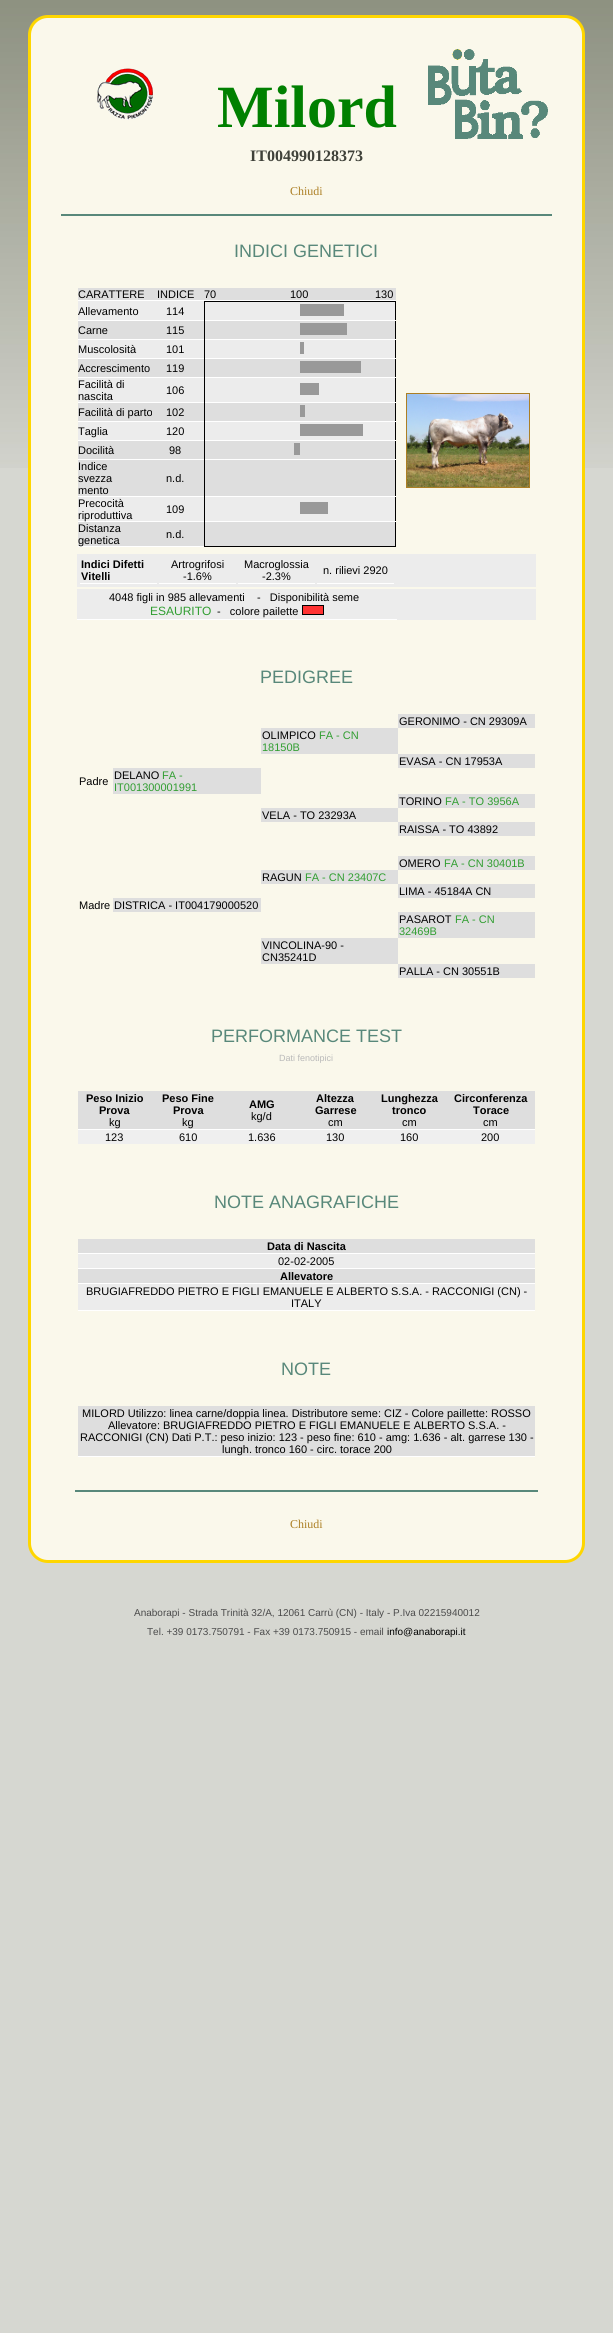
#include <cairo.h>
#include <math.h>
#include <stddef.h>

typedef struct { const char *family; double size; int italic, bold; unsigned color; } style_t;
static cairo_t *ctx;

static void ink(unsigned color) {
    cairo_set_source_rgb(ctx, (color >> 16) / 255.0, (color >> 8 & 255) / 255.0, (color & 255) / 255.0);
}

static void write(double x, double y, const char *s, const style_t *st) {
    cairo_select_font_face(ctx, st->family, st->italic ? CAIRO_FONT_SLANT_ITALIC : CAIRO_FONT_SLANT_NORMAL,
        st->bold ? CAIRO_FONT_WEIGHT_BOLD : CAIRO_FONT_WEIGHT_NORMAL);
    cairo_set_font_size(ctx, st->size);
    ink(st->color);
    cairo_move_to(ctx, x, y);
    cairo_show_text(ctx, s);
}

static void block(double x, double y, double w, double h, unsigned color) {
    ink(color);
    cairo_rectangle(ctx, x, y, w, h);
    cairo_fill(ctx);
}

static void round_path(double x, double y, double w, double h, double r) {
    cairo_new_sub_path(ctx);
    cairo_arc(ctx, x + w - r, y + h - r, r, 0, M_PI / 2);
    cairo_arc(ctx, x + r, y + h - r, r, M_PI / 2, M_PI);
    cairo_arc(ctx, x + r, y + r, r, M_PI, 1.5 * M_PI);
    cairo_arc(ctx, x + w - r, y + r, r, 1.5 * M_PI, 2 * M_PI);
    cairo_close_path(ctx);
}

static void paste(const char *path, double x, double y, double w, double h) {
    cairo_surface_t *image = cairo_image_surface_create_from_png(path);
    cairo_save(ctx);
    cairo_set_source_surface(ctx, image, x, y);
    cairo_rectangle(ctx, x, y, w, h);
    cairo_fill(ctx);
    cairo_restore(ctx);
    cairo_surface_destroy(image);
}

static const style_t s1 = {"Liberation Serif", 60, 0, 1, 0x008000};
static const style_t s2 = {"Liberation Serif", 16, 0, 1, 0x3f4139};
static const style_t s3 = {"Liberation Serif", 12, 0, 0, 0xac7f24};
static const style_t s4 = {"Liberation Sans", 18, 0, 0, 0x58887a};
static const style_t s5 = {"Liberation Sans", 11, 0, 0, 0x000000};
static const style_t s6 = {"Liberation Sans", 11, 0, 1, 0x000000};
static const style_t s7 = {"Liberation Sans", 12, 0, 0, 0x319e31};
static const style_t s8 = {"Liberation Sans", 11, 0, 0, 0x319e31};
static const style_t s9 = {"Liberation Sans", 9, 0, 0, 0xb9b9b9};
static const style_t s10 = {"Liberation Sans", 10, 0, 0, 0x4b4b4b};
static const style_t s11 = {"Liberation Sans", 10, 0, 0, 0x000000};

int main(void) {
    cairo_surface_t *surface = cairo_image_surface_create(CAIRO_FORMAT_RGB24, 613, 2333);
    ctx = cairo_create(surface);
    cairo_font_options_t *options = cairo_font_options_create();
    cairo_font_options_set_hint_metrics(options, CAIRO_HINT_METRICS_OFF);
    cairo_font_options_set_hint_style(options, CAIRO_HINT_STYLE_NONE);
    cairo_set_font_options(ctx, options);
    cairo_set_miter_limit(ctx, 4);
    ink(0xd6d7d1);
    cairo_paint(ctx);
    paste("pic1.png", 0, 0, 613, 468);
    ink(0xfaf8eb);
    round_path(29.5, 16.5, 554, 1545, 18.5);
    cairo_fill_preserve(ctx);
    ink(0xfed600);
    cairo_set_line_width(ctx, 3);
    cairo_stroke(ctx);
    paste("pic2.png", 97, 68, 56, 52);
    paste("pic3.png", 428, 49, 120, 90);
    write(217, 127, "Milord", &s1);
    write(250, 161, "IT004990128373", &s2);
    write(290, 195, "Chiudi", &s3);
    block(61, 214, 491, 2, 0x58887a);
    write(234, 257, "INDICI GENETICI", &s4);
    block(78, 288, 318, 12, 0xdedede);
    block(78, 300, 318, 1, 0xffffff);
    write(78, 298, "CARATTERE", &s5);
    write(157, 298, "INDICE", &s5);
    write(204, 298, "70", &s5);
    write(290, 298, "100", &s5);
    write(375, 298, "130", &s5);
    block(78, 301, 317, 19, 0xececec);
    block(78, 320, 126, 1, 0xffffff);
    write(78, 315, "Allevamento", &s5);
    write(166, 315, "114", &s5);
    block(204, 301, 192, 1, 0x000000);
    block(395, 301, 1, 246, 0x000000);
    block(204, 320, 192, 1, 0xffffff);
    block(204, 301, 1, 20, 0x000000);
    block(300, 304, 44, 12, 0x999999);
    block(78, 321, 317, 18, 0xdedede);
    block(78, 339, 318, 1, 0xffffff);
    write(78, 334, "Carne", &s5);
    write(166, 334, "115", &s5);
    block(204, 321, 1, 19, 0x000000);
    block(300, 323, 47, 12, 0x999999);
    block(78, 340, 317, 18, 0xececec);
    block(78, 358, 318, 1, 0xffffff);
    write(78, 353, "Muscolosità", &s5);
    write(166, 353, "101", &s5);
    block(204, 340, 1, 19, 0x000000);
    block(300, 342, 4, 12, 0x999999);
    block(78, 359, 317, 18, 0xdedede);
    block(78, 377, 318, 1, 0xffffff);
    write(78, 372, "Accrescimento", &s5);
    write(166, 372, "119", &s5);
    block(204, 359, 1, 19, 0x000000);
    block(300, 361, 61, 12, 0x999999);
    block(78, 378, 317, 24, 0xececec);
    block(78, 402, 318, 1, 0xffffff);
    write(78, 388, "Facilità di", &s5);
    write(78, 400, "nascita", &s5);
    write(166, 394, "106", &s5);
    block(204, 378, 1, 25, 0x000000);
    block(300, 383, 19, 12, 0x999999);
    block(78, 403, 317, 18, 0xdedede);
    block(78, 421, 318, 1, 0xffffff);
    write(78, 416, "Facilità di parto", &s5);
    write(166, 416, "102", &s5);
    block(204, 403, 1, 19, 0x000000);
    block(300, 405, 5, 12, 0x999999);
    block(78, 422, 317, 18, 0xececec);
    block(78, 440, 318, 1, 0xffffff);
    write(78, 435, "Taglia", &s5);
    write(166, 435, "120", &s5);
    block(204, 422, 1, 19, 0x000000);
    block(300, 424, 63, 12, 0x999999);
    block(78, 441, 317, 18, 0xdedede);
    block(78, 459, 318, 1, 0xffffff);
    write(78, 454, "Docilità", &s5);
    write(169, 454, "98", &s5);
    block(204, 441, 1, 19, 0x000000);
    block(294, 443, 6, 12, 0x999999);
    block(78, 460, 317, 36, 0xdedede);
    block(78, 496, 318, 1, 0xffffff);
    write(78, 470, "Indice", &s5);
    write(78, 482, "svezza", &s5);
    write(78, 494, "mento", &s5);
    write(166, 482, "n.d.", &s5);
    block(204, 460, 1, 37, 0x000000);
    block(78, 497, 317, 24, 0xececec);
    block(78, 521, 318, 1, 0xffffff);
    write(78, 507, "Precocità", &s5);
    write(78, 519, "riproduttiva", &s5);
    write(166, 513, "109", &s5);
    block(204, 497, 1, 25, 0x000000);
    block(300, 502, 28, 12, 0x999999);
    block(78, 522, 317, 24, 0xdedede);
    block(78, 546, 126, 1, 0xffffff);
    write(78, 532, "Distanza", &s5);
    write(78, 544, "genetica", &s5);
    write(166, 538, "n.d.", &s5);
    block(204, 546, 192, 1, 0x000000);
    block(204, 522, 1, 25, 0x000000);
    cairo_rectangle(ctx, 406.5, 393.5, 123, 94);
    ink(0xac7f24);
    cairo_set_line_width(ctx, 1);
    cairo_stroke(ctx);
    paste("pic4.png", 407, 394, 122, 93);
    block(77, 554, 459, 33, 0xececec);
    block(80, 583, 77, 1, 0xffffff);
    write(81, 568, "Indici Difetti", &s6);
    write(81, 580, "Vitelli", &s6);
    block(159, 583, 77, 1, 0xffffff);
    write(171, 568, "Artrogrifosi", &s5);
    write(183, 580, "-1.6%", &s5);
    block(238, 583, 77, 1, 0xffffff);
    write(244, 568, "Macroglossia", &s5);
    write(262, 580, "-2.3%", &s5);
    block(317, 583, 77, 1, 0xffffff);
    write(323, 574, "n. rilievi 2920", &s5);
    block(77, 589, 459, 31, 0xececec);
    block(77, 619, 320, 1, 0xffffff);
    write(109, 601, "4048 figli in 985 allevamenti    -   Disponibilità seme", &s5);
    write(150, 615, "ESAURITO", &s7);
    write(217, 615, "-   colore pailette", &s5);
    ink(0xff3333);
    cairo_rectangle(ctx, 302.5, 605.5, 21, 9);
    cairo_fill_preserve(ctx);
    ink(0x000000);
    cairo_stroke(ctx);
    write(260, 683, "PEDIGREE", &s4);
    block(398, 714, 137, 14, 0xdedede);
    write(399, 725, "GERONIMO - CN 29309A", &s5);
    block(261, 728, 137, 26, 0xdedede);
    write(262, 739, "OLIMPICO", &s5);
    write(319, 739, "FA - CN", &s8);
    write(262, 751, "18150B", &s8);
    block(398, 754, 137, 14, 0xdedede);
    write(399, 765, "EVASA - CN 17953A", &s5);
    write(79, 785, "Padre", &s5);
    block(113, 768, 148, 26, 0xdedede);
    write(114, 779, "DELANO", &s5);
    write(162, 779, "FA -", &s8);
    write(114, 791, "IT001300001991", &s8);
    block(398, 794, 137, 14, 0xdedede);
    write(399, 805, "TORINO", &s5);
    write(445, 805, "FA - TO 3956A", &s8);
    block(261, 808, 137, 14, 0xdedede);
    write(262, 819, "VELA - TO 23293A", &s5);
    block(398, 822, 137, 14, 0xdedede);
    write(399, 833, "RAISSA - TO 43892", &s5);
    block(398, 856, 137, 14, 0xdedede);
    write(399, 867, "OMERO", &s5);
    write(444, 867, "FA - CN 30401B", &s8);
    block(261, 870, 137, 14, 0xdedede);
    write(262, 881, "RAGUN", &s5);
    write(305, 881, "FA - CN 23407C", &s8);
    block(398, 884, 137, 14, 0xdedede);
    write(399, 895, "LIMA - 45184A CN", &s5);
    write(79, 909, "Madre", &s5);
    block(113, 898, 148, 14, 0xdedede);
    write(114, 909, "DISTRICA - IT004179000520", &s5);
    block(398, 912, 137, 26, 0xdedede);
    write(399, 923, "PASAROT", &s5);
    write(455, 923, "FA - CN", &s8);
    write(399, 935, "32469B", &s8);
    block(261, 938, 137, 26, 0xdedede);
    write(262, 949, "VINCOLINA-90 -", &s5);
    write(262, 961, "CN35241D", &s5);
    block(398, 964, 137, 14, 0xdedede);
    write(399, 975, "PALLA - CN 30551B", &s5);
    write(211, 1042, "PERFORMANCE TEST", &s4);
    write(279, 1061, "Dati fenotipici", &s9);
    block(78, 1091, 457, 38, 0xdedede);
    block(78, 1129, 457, 1, 0xffffff);
    write(86, 1102, "Peso Inizio", &s6);
    write(99, 1114, "Prova", &s6);
    write(109, 1126, "kg", &s5);
    write(162, 1102, "Peso Fine", &s6);
    write(173, 1114, "Prova", &s6);
    write(182, 1126, "kg", &s5);
    write(249, 1108, "AMG", &s6);
    write(251, 1120, "kg/d", &s5);
    write(316, 1102, "Altezza", &s6);
    write(315, 1114, "Garrese", &s6);
    write(328, 1126, "cm", &s5);
    write(381, 1102, "Lunghezza", &s6);
    write(392, 1114, "tronco", &s6);
    write(402, 1126, "cm", &s5);
    write(454, 1102, "Circonferenza", &s6);
    write(473, 1114, "Torace", &s6);
    write(483, 1126, "cm", &s5);
    block(78, 1130, 457, 14, 0xefefef);
    write(105, 1141, "123", &s5);
    write(179, 1141, "610", &s5);
    write(248, 1141, "1.636", &s5);
    write(326, 1141, "130", &s5);
    write(400, 1141, "160", &s5);
    write(481, 1141, "200", &s5);
    write(214, 1208, "NOTE ANAGRAFICHE", &s4);
    block(78, 1239, 457, 14, 0xdedede);
    block(78, 1253, 457, 1, 0xffffff);
    write(267, 1250, "Data di Nascita", &s6);
    block(78, 1254, 457, 14, 0xececec);
    block(78, 1268, 457, 1, 0xffffff);
    write(278, 1265, "02-02-2005", &s5);
    block(78, 1269, 457, 14, 0xdedede);
    block(78, 1283, 457, 1, 0xffffff);
    write(280, 1280, "Allevatore", &s6);
    block(78, 1284, 457, 26, 0xececec);
    block(78, 1310, 457, 1, 0xffffff);
    write(86, 1295, "BRUGIAFREDDO PIETRO E FIGLI EMANUELE E ALBERTO S.S.A. - RACCONIGI (CN) -", &s5);
    write(291, 1307, "ITALY", &s5);
    write(281, 1375, "NOTE", &s4);
    block(78, 1406, 457, 50, 0xdedede);
    block(78, 1456, 457, 1, 0xffffff);
    write(82, 1417, "MILORD Utilizzo: linea carne/doppia linea. Distributore seme: CIZ - Colore paillette: ROSSO", &s5);
    write(108, 1429, "Allevatore: BRUGIAFREDDO PIETRO E FIGLI EMANUELE E ALBERTO S.S.A. -", &s5);
    write(80, 1441, "RACCONIGI (CN) Dati P.T.: peso inizio: 123 - peso fine: 610 - amg: 1.636 - alt. garrese 130 -", &s5);
    write(222, 1453, "lungh. tronco 160 - circ. torace 200", &s5);
    block(75, 1490, 463, 2, 0x58887a);
    write(290, 1528, "Chiudi", &s3);
    write(134, 1616, "Anaborapi - Strada Trinità 32/A, 12061 Carrù (CN) - Italy - P.Iva 02215940012", &s10);
    write(147, 1635, "Tel. +39 0173.750791 - Fax +39 0173.750915 - email", &s10);
    write(387, 1635, "info@anaborapi.it", &s11);
    cairo_surface_write_to_png(surface, "screenshot.png");
    cairo_font_options_destroy(options);
    cairo_destroy(ctx);
    cairo_surface_destroy(surface);
    return 0;
}
